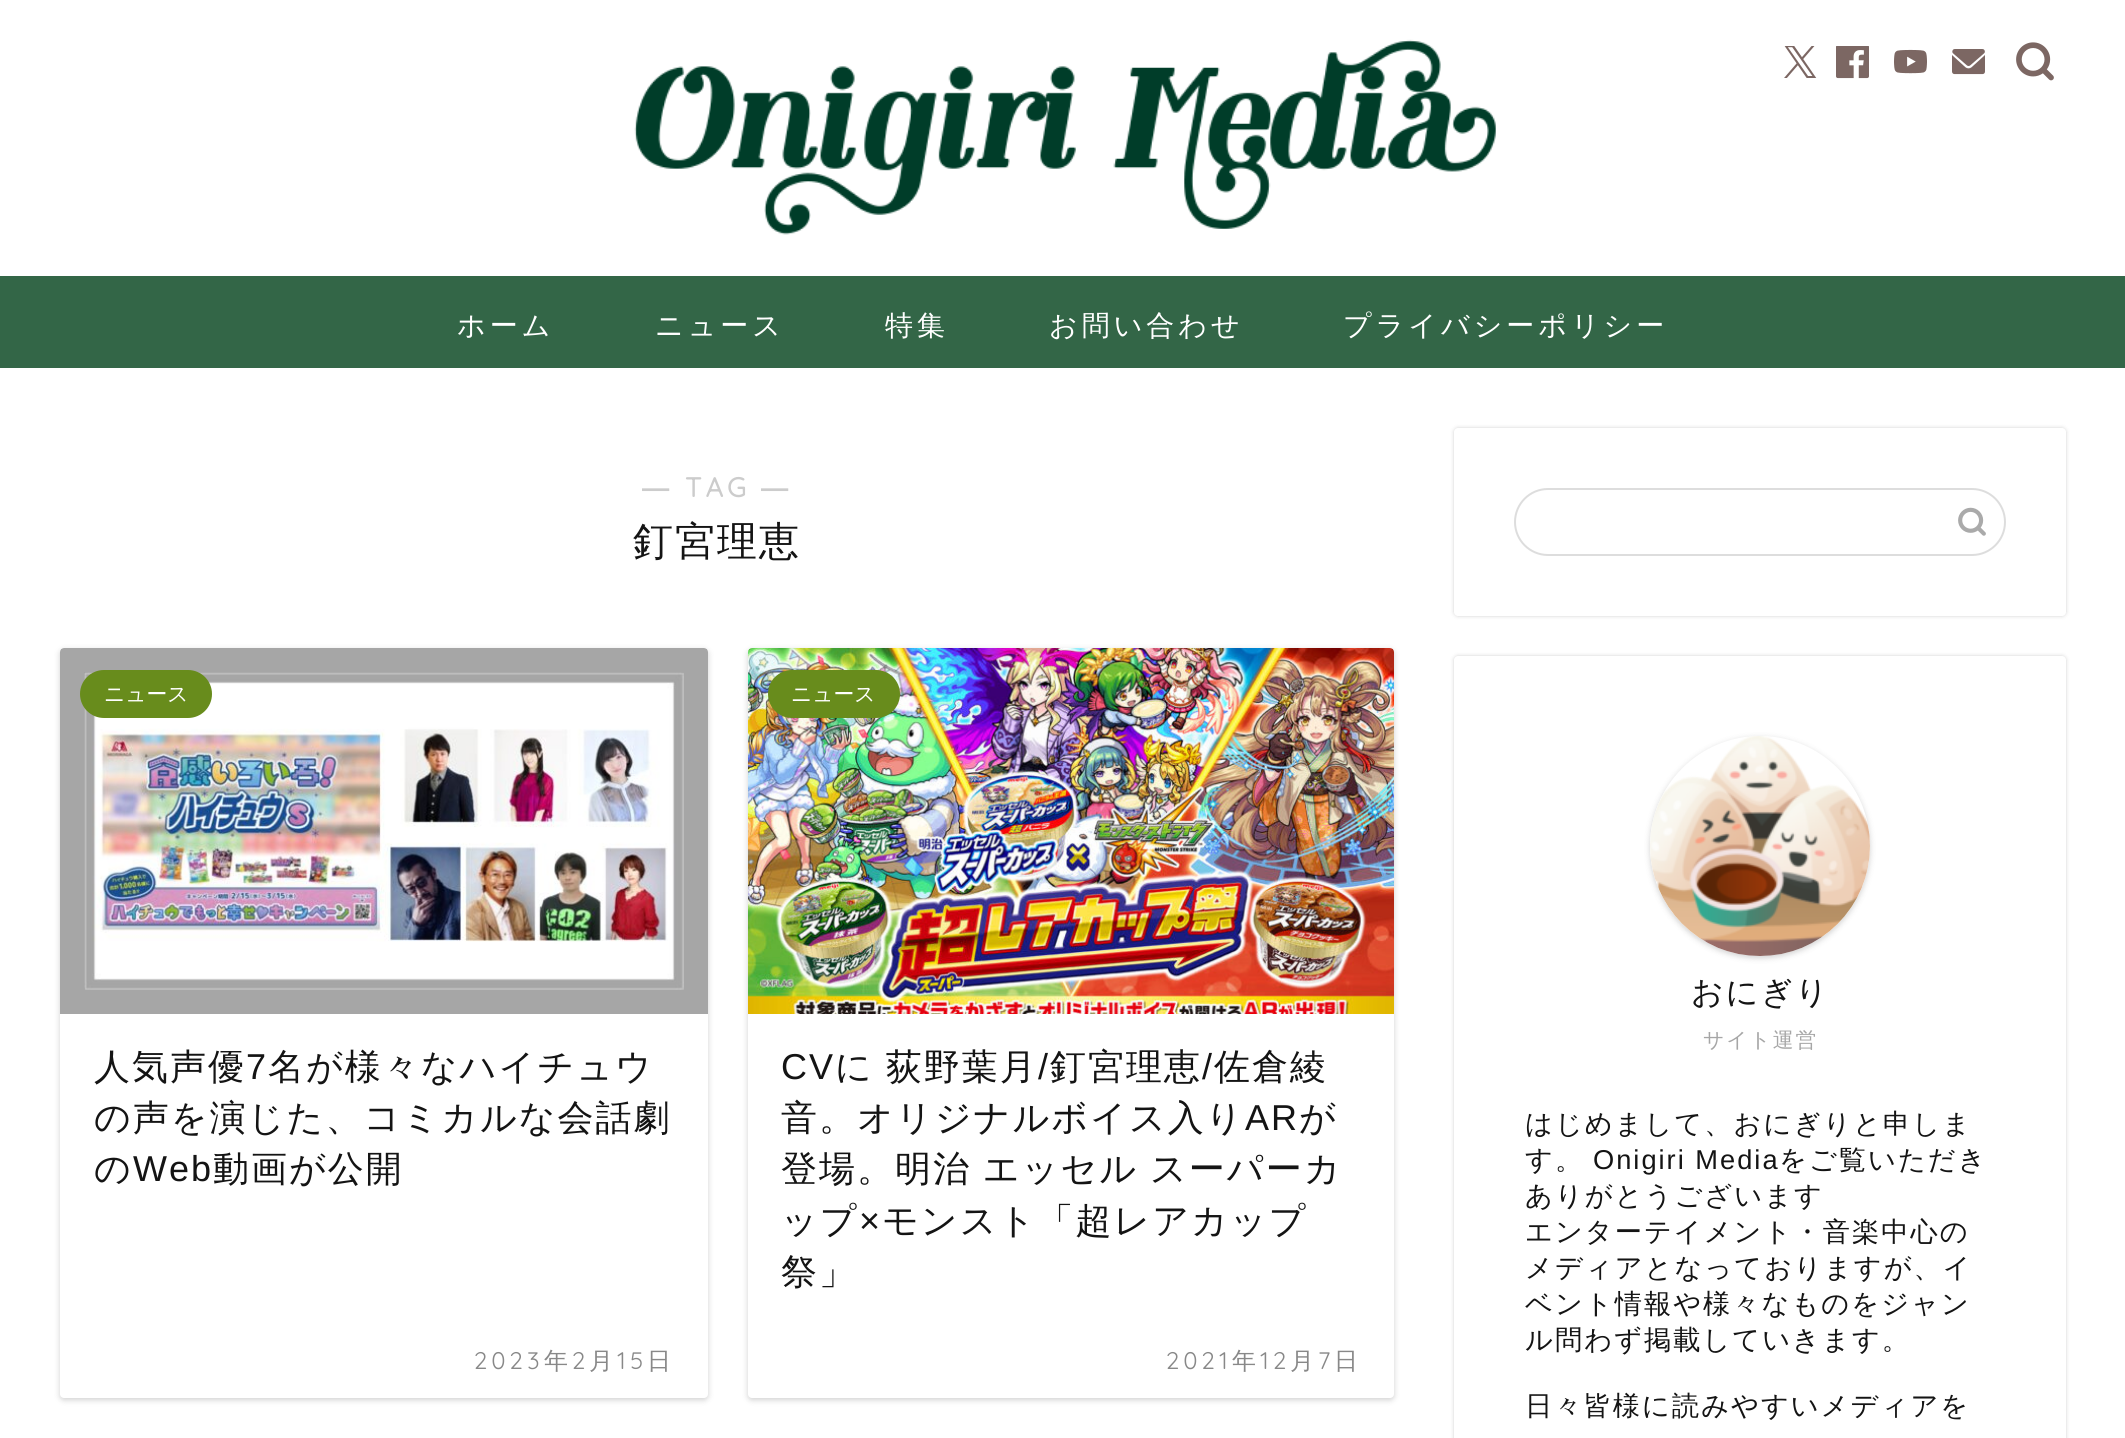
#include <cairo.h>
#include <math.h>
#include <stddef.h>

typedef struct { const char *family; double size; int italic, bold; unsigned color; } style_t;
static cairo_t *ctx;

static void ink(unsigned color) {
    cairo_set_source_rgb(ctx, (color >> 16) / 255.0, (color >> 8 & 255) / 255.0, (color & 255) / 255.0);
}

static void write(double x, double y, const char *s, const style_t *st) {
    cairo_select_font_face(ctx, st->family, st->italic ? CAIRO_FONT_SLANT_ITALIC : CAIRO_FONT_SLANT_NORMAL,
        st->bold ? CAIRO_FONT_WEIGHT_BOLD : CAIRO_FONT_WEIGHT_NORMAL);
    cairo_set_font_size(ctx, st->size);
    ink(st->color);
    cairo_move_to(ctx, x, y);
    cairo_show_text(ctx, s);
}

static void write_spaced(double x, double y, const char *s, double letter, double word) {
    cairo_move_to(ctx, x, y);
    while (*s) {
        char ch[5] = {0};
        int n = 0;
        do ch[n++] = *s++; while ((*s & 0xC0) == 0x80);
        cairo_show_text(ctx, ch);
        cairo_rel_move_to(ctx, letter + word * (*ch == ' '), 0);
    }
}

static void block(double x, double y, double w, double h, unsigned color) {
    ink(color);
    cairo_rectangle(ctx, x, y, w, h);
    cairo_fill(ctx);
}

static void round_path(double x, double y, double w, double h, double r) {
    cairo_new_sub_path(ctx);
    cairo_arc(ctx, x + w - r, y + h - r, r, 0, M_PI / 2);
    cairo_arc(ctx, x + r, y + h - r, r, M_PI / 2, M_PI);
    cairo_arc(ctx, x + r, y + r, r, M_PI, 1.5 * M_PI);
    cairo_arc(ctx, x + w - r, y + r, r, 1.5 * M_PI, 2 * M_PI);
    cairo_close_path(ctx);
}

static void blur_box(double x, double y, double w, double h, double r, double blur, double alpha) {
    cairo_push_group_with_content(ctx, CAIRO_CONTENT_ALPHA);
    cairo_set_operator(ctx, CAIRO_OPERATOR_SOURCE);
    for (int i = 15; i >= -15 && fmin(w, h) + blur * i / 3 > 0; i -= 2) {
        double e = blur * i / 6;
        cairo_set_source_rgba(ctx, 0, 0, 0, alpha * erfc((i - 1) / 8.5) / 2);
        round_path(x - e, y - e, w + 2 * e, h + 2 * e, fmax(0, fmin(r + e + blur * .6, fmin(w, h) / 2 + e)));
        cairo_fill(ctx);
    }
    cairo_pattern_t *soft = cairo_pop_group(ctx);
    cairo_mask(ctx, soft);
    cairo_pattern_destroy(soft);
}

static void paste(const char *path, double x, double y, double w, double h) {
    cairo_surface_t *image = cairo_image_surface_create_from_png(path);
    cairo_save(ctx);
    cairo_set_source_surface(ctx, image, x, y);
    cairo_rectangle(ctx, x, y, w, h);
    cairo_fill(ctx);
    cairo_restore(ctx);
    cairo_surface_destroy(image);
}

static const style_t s1 = {"WenQuanYi Zen Hei Medium", 20.75, 0, 0, 0xffffff};

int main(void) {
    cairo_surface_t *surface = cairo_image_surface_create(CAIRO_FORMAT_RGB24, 2125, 1438);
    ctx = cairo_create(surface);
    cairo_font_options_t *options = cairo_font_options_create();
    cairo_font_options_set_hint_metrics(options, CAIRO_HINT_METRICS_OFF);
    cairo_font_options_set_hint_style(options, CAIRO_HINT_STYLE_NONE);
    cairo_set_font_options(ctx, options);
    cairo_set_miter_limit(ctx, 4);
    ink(0xffffff);
    cairo_paint(ctx);
    paste("pic1.png", 634, 39, 862, 196);
    paste("pic2.png", 1784, 46, 33, 32);
    paste("pic3.png", 1836, 46, 33, 33);
    paste("pic4.png", 1894, 49, 33, 25);
    paste("pic5.png", 1952, 49, 33, 26);
    paste("pic6.png", 2016, 42, 38, 39);
    block(0, 276, 2125, 92, 0x336647);
    cairo_select_font_face(ctx, "WenQuanYi Zen Hei Medium", CAIRO_FONT_SLANT_NORMAL, CAIRO_FONT_WEIGHT_NORMAL);
    cairo_set_font_size(ctx, 28);
    ink(0xffffff);
    write_spaced(457, 335, "ホーム", 4, 0);
    write_spaced(655, 335, "ニュース", 4, 0);
    write_spaced(885, 335, "特集", 4, 0);
    write_spaced(1049, 335, "お問い合わせ", 4, 0);
    write_spaced(1343, 335, "プライバシーポリシー", 4, 0);
    cairo_select_font_face(ctx, "Liberation Sans", CAIRO_FONT_SLANT_NORMAL, CAIRO_FONT_WEIGHT_BOLD);
    cairo_set_font_size(ctx, 27.25);
    ink(0xcccccc);
    write_spaced(642, 497, "―", 4, 0);
    cairo_select_font_face(ctx, "Quicksand", CAIRO_FONT_SLANT_NORMAL, CAIRO_FONT_WEIGHT_BOLD);
    write_spaced(685, 497, "TAG", 4, 0);
    cairo_select_font_face(ctx, "Liberation Sans", CAIRO_FONT_SLANT_NORMAL, CAIRO_FONT_WEIGHT_BOLD);
    write_spaced(761, 497, "―", 4, 0);
    cairo_select_font_face(ctx, "WenQuanYi Zen Hei Medium", CAIRO_FONT_SLANT_NORMAL, CAIRO_FONT_WEIGHT_NORMAL);
    cairo_set_font_size(ctx, 40);
    ink(0x141414);
    write_spaced(633, 555, "釘宮理恵", 2, 0);
    ink(0x000000);
    blur_box(60, 650, 648, 750, 4, 3, 0.18);
    ink(0xffffff);
    round_path(60, 648, 648, 750, 4);
    cairo_fill(ctx);
    paste("pic7.png", 60, 648, 648, 366);
    ink(0x688c1c);
    round_path(80, 670, 132, 48, 24);
    cairo_fill(ctx);
    write(104, 701, "ニュース", &s1);
    cairo_set_font_size(ctx, 36);
    ink(0x141414);
    write_spaced(94, 1079, "人気声優", 2, 0);
    cairo_select_font_face(ctx, "Liberation Sans", CAIRO_FONT_SLANT_NORMAL, CAIRO_FONT_WEIGHT_NORMAL);
    write_spaced(246, 1079, "7", 2, 0);
    cairo_select_font_face(ctx, "WenQuanYi Zen Hei Medium", CAIRO_FONT_SLANT_NORMAL, CAIRO_FONT_WEIGHT_NORMAL);
    write_spaced(268, 1079, "名が様々なハイチュウ", 2, 0);
    write_spaced(94, 1130, "の声を演じた、コミカルな会話劇", 2, 0);
    write_spaced(94, 1181, "の", 2, 0);
    cairo_select_font_face(ctx, "Liberation Sans", CAIRO_FONT_SLANT_NORMAL, CAIRO_FONT_WEIGHT_NORMAL);
    write_spaced(133, 1181, "Web", 2, 0);
    cairo_select_font_face(ctx, "WenQuanYi Zen Hei Medium", CAIRO_FONT_SLANT_NORMAL, CAIRO_FONT_WEIGHT_NORMAL);
    write_spaced(213, 1181, "動画が公開", 2, 0);
    cairo_select_font_face(ctx, "Quicksand Light", CAIRO_FONT_SLANT_NORMAL, CAIRO_FONT_WEIGHT_NORMAL);
    cairo_set_font_size(ctx, 24);
    ink(0x888888);
    write_spaced(474, 1369, "2023", 4, 0);
    cairo_select_font_face(ctx, "WenQuanYi Zen Hei Medium", CAIRO_FONT_SLANT_NORMAL, CAIRO_FONT_WEIGHT_NORMAL);
    write_spaced(544, 1369, "年", 4, 0);
    cairo_select_font_face(ctx, "Quicksand Light", CAIRO_FONT_SLANT_NORMAL, CAIRO_FONT_WEIGHT_NORMAL);
    write_spaced(572, 1369, "2", 4, 0);
    cairo_select_font_face(ctx, "WenQuanYi Zen Hei Medium", CAIRO_FONT_SLANT_NORMAL, CAIRO_FONT_WEIGHT_NORMAL);
    write_spaced(589, 1369, "月", 4, 0);
    cairo_select_font_face(ctx, "Quicksand Light", CAIRO_FONT_SLANT_NORMAL, CAIRO_FONT_WEIGHT_NORMAL);
    write_spaced(617, 1369, "15", 4, 0);
    cairo_select_font_face(ctx, "WenQuanYi Zen Hei Medium", CAIRO_FONT_SLANT_NORMAL, CAIRO_FONT_WEIGHT_NORMAL);
    write_spaced(647, 1369, "日", 4, 0);
    ink(0x000000);
    blur_box(748, 650, 646, 750, 4, 3, 0.18);
    ink(0xffffff);
    round_path(748, 648, 646, 750, 4);
    cairo_fill(ctx);
    paste("pic8.png", 748, 648, 646, 366);
    ink(0x688c1c);
    round_path(768, 670, 132, 48, 24);
    cairo_fill(ctx);
    write(791, 701, "ニュース", &s1);
    cairo_select_font_face(ctx, "Liberation Sans", CAIRO_FONT_SLANT_NORMAL, CAIRO_FONT_WEIGHT_NORMAL);
    cairo_set_font_size(ctx, 36);
    ink(0x141414);
    write_spaced(781, 1079, "CV", 2, 0);
    cairo_select_font_face(ctx, "WenQuanYi Zen Hei Medium", CAIRO_FONT_SLANT_NORMAL, CAIRO_FONT_WEIGHT_NORMAL);
    write_spaced(835, 1079, "に 荻野葉月", 2, -1);
    cairo_select_font_face(ctx, "Liberation Sans", CAIRO_FONT_SLANT_NORMAL, CAIRO_FONT_WEIGHT_NORMAL);
    write_spaced(1038, 1079, "/", 2, 0);
    cairo_select_font_face(ctx, "WenQuanYi Zen Hei Medium", CAIRO_FONT_SLANT_NORMAL, CAIRO_FONT_WEIGHT_NORMAL);
    write_spaced(1050, 1079, "釘宮理恵", 2, 0);
    cairo_select_font_face(ctx, "Liberation Sans", CAIRO_FONT_SLANT_NORMAL, CAIRO_FONT_WEIGHT_NORMAL);
    write_spaced(1202, 1079, "/", 2, 0);
    cairo_select_font_face(ctx, "WenQuanYi Zen Hei Medium", CAIRO_FONT_SLANT_NORMAL, CAIRO_FONT_WEIGHT_NORMAL);
    write_spaced(1214, 1079, "佐倉綾", 2, 0);
    write_spaced(781, 1130, "音。オリジナルボイス入り", 2, 0);
    cairo_select_font_face(ctx, "Liberation Sans", CAIRO_FONT_SLANT_NORMAL, CAIRO_FONT_WEIGHT_NORMAL);
    write_spaced(1245, 1130, "AR", 2, 0);
    cairo_select_font_face(ctx, "WenQuanYi Zen Hei Medium", CAIRO_FONT_SLANT_NORMAL, CAIRO_FONT_WEIGHT_NORMAL);
    write_spaced(1299, 1130, "が", 2, 0);
    write_spaced(781, 1181, "登場。明治 エッセル スーパーカ", 2, -1);
    write_spaced(781, 1233, "ップ", 2, 0);
    cairo_select_font_face(ctx, "Liberation Sans", CAIRO_FONT_SLANT_NORMAL, CAIRO_FONT_WEIGHT_NORMAL);
    write_spaced(859, 1233, "×", 2, 0);
    cairo_select_font_face(ctx, "WenQuanYi Zen Hei Medium", CAIRO_FONT_SLANT_NORMAL, CAIRO_FONT_WEIGHT_NORMAL);
    write_spaced(882, 1233, "モンスト「超レアカップ", 2, 0);
    write_spaced(781, 1284, "祭」", 2, 0);
    cairo_select_font_face(ctx, "Quicksand Light", CAIRO_FONT_SLANT_NORMAL, CAIRO_FONT_WEIGHT_NORMAL);
    cairo_set_font_size(ctx, 24);
    ink(0x888888);
    write_spaced(1166, 1369, "2021", 4, 0);
    cairo_select_font_face(ctx, "WenQuanYi Zen Hei Medium", CAIRO_FONT_SLANT_NORMAL, CAIRO_FONT_WEIGHT_NORMAL);
    write_spaced(1232, 1369, "年", 4, 0);
    cairo_select_font_face(ctx, "Quicksand Light", CAIRO_FONT_SLANT_NORMAL, CAIRO_FONT_WEIGHT_NORMAL);
    write_spaced(1260, 1369, "12", 4, 0);
    cairo_select_font_face(ctx, "WenQuanYi Zen Hei Medium", CAIRO_FONT_SLANT_NORMAL, CAIRO_FONT_WEIGHT_NORMAL);
    write_spaced(1290, 1369, "月", 4, 0);
    cairo_select_font_face(ctx, "Quicksand Light", CAIRO_FONT_SLANT_NORMAL, CAIRO_FONT_WEIGHT_NORMAL);
    write_spaced(1318, 1369, "7", 4, 0);
    cairo_select_font_face(ctx, "WenQuanYi Zen Hei Medium", CAIRO_FONT_SLANT_NORMAL, CAIRO_FONT_WEIGHT_NORMAL);
    write_spaced(1334, 1369, "日", 4, 0);
    ink(0x000000);
    blur_box(1454, 428, 612, 188, 4, 2, 0.18);
    ink(0xffffff);
    round_path(1454, 428, 612, 188, 4);
    cairo_fill(ctx);
    round_path(1515, 489, 490, 66, 33);
    ink(0xdddddd);
    cairo_stroke(ctx);
    paste("pic9.png", 1958, 507, 28, 29);
    ink(0x000000);
    blur_box(1454, 656, 612, 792, 4, 2, 0.18);
    ink(0xffffff);
    round_path(1454, 656, 612, 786, 4);
    cairo_fill(ctx);
    ink(0x000000);
    blur_box(1650, 738, 220, 220, 110, 3, 0.18);
    ink(0xffffff);
    cairo_arc(ctx, 1760, 846, 110, 0, 2 * M_PI);
    cairo_fill(ctx);
    paste("pic10.png", 1650, 736, 220, 220);
    cairo_set_font_size(ctx, 32);
    ink(0x141414);
    write_spaced(1691, 1003, "おにぎり", 2, 0);
    cairo_set_font_size(ctx, 20.75);
    ink(0xa6a6a6);
    write_spaced(1703, 1047, "サイト運営", 2, 0);
    cairo_set_font_size(ctx, 27.25);
    ink(0x141414);
    write_spaced(1525, 1133, "はじめまして、おにぎりと申しま", 2, 0);
    write_spaced(1525, 1169, "す。", 2, 0);
    cairo_select_font_face(ctx, "Liberation Sans", CAIRO_FONT_SLANT_NORMAL, CAIRO_FONT_WEIGHT_NORMAL);
    write_spaced(1593, 1169, "Onigiri Media", 2, 0);
    cairo_select_font_face(ctx, "WenQuanYi Zen Hei Medium", CAIRO_FONT_SLANT_NORMAL, CAIRO_FONT_WEIGHT_NORMAL);
    write_spaced(1779, 1169, "をご覧いただき", 2, 0);
    write_spaced(1525, 1205, "ありがとうございます", 2, 0);
    write_spaced(1525, 1241, "エンターテイメント・音楽中心の", 2, 0);
    write_spaced(1525, 1277, "メディアとなっておりますが、イ", 2, 0);
    write_spaced(1525, 1313, "ベント情報や様々なものをジャン", 2, 0);
    write_spaced(1525, 1349, "ル問わず掲載していきます。", 2, 0);
    write_spaced(1525, 1415, "日々皆様に読みやすいメディアを", 2, 0);
    cairo_surface_write_to_png(surface, "screenshot.png");
    cairo_font_options_destroy(options);
    cairo_destroy(ctx);
    cairo_surface_destroy(surface);
    return 0;
}
